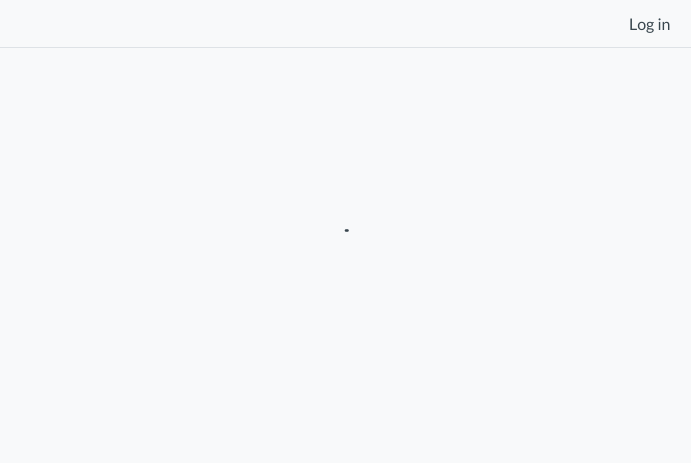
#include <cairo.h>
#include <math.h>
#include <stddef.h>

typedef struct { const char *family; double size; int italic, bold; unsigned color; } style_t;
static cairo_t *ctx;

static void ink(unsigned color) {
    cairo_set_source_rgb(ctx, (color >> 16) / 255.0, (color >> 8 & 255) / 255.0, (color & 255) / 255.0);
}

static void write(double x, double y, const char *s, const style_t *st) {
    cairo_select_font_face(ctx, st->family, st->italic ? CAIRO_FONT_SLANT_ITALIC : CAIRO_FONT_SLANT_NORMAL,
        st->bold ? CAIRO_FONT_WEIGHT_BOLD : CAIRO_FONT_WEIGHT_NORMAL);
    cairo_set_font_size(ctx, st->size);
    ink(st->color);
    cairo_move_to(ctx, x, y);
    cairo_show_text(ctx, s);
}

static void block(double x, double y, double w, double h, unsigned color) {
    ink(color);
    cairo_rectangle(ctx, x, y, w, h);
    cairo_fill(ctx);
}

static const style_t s1 = {"Lato", 16, 0, 0, 0x39464e};

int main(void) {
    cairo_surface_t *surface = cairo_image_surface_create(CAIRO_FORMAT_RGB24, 691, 463);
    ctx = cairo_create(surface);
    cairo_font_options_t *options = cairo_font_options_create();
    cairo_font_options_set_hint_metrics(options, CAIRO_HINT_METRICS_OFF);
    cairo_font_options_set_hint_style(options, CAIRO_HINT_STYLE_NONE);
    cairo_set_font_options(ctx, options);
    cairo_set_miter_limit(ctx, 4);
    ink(0xf8f9fa);
    cairo_paint(ctx);
    block(0, 47, 691, 1, 0xdee2e6);
    write(629, 30, "Log in", &s1);
    cairo_new_path(ctx);
    cairo_move_to(ctx, 346, 230.5);
    cairo_line_to(ctx, 347.5, 230.5);
    cairo_set_line_width(ctx, 2.6);
    cairo_set_line_cap(ctx, CAIRO_LINE_CAP_ROUND);
    cairo_set_line_join(ctx, CAIRO_LINE_JOIN_ROUND);
    cairo_stroke(ctx);
    cairo_surface_write_to_png(surface, "screenshot.png");
    cairo_font_options_destroy(options);
    cairo_destroy(ctx);
    cairo_surface_destroy(surface);
    return 0;
}
